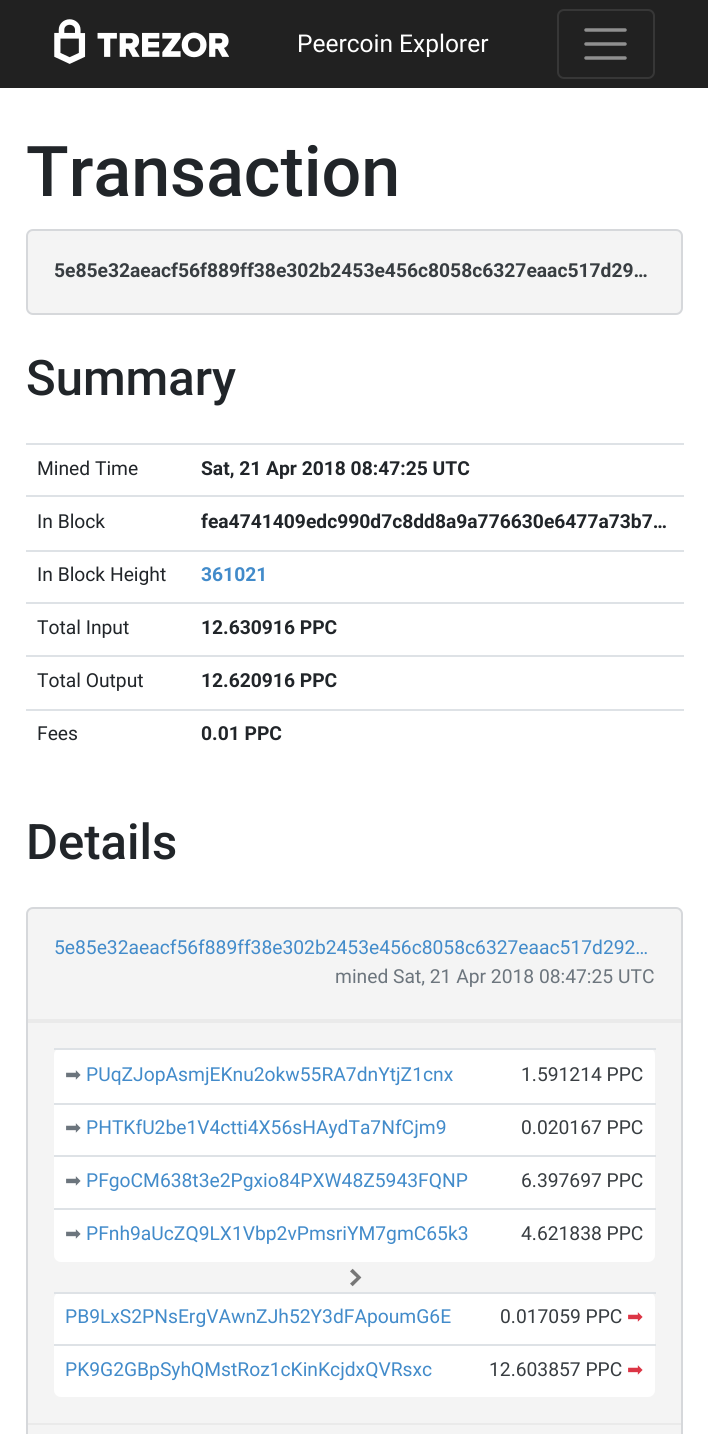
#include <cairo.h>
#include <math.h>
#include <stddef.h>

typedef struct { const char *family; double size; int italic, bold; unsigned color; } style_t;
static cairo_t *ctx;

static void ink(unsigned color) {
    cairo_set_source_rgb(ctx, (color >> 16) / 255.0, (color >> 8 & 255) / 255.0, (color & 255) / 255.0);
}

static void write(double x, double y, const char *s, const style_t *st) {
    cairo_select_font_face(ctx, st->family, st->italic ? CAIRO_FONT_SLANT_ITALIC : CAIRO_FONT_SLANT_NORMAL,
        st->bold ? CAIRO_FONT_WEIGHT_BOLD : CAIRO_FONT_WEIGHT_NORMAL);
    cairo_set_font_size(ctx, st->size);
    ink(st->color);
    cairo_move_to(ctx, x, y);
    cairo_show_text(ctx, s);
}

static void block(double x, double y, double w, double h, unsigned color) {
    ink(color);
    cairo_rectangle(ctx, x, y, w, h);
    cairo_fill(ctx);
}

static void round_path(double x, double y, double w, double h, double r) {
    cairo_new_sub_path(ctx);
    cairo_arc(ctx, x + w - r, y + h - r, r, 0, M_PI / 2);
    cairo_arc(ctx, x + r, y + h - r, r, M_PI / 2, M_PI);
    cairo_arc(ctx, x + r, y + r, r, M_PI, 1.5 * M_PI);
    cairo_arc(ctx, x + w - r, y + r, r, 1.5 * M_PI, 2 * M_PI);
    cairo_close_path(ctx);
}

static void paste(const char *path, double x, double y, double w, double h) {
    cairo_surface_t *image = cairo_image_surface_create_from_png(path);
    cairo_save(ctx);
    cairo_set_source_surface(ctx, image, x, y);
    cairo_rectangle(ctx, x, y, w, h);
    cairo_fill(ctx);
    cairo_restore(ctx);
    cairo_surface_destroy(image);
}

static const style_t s1 = {"Roboto", 24.5, 0, 0, 0xffffff};
static const style_t s2 = {"Roboto Medium", 70, 0, 0, 0x212529};
static const style_t s3 = {"Roboto", 19.25, 0, 1, 0x383d41};
static const style_t s4 = {"Roboto Medium", 49, 0, 0, 0x212529};
static const style_t s5 = {"Roboto", 19.25, 0, 0, 0x212529};
static const style_t s6 = {"Roboto", 19.25, 0, 1, 0x212529};
static const style_t s7 = {"Roboto", 19.25, 0, 1, 0x428bca};
static const style_t s8 = {"Roboto", 19.25, 0, 0, 0x428bca};
static const style_t s9 = {"Roboto", 19.25, 0, 0, 0x6c757d};
static const style_t s10 = {"DejaVu Sans", 19.25, 0, 0, 0x6c757d};
static const style_t s11 = {"Roboto", 19.25, 0, 0, 0x383d41};
static const style_t s12 = {"DejaVu Sans", 19.25, 0, 0, 0xdc3545};

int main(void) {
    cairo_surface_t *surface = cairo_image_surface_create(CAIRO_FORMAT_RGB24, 708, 1434);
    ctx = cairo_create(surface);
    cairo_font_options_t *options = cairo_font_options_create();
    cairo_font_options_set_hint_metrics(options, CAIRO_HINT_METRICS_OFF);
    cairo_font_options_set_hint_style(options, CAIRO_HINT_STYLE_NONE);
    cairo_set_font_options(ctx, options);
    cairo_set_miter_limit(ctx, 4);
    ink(0xffffff);
    cairo_paint(ctx);
    block(0, 0, 708, 88, 0x212121);
    paste("pic1.png", 54, 19, 175, 45);
    write(297, 52, "Peercoin Explorer", &s1);
    round_path(558, 10, 96, 68, 6);
    ink(0x373737);
    cairo_stroke(ctx);
    cairo_new_path(ctx);
    cairo_move_to(ctx, 586, 30);
    cairo_line_to(ctx, 625, 30);
    cairo_move_to(ctx, 586, 44);
    cairo_line_to(ctx, 625, 44);
    cairo_move_to(ctx, 586, 58);
    cairo_line_to(ctx, 625, 58);
    ink(0x909090);
    cairo_set_line_width(ctx, 3.5);
    cairo_set_line_cap(ctx, CAIRO_LINE_CAP_ROUND);
    cairo_stroke(ctx);
    write(26, 196, "Transaction", &s2);
    ink(0xf4f4f4);
    round_path(27, 230, 655, 84, 6);
    cairo_fill_preserve(ctx);
    ink(0xd6d8db);
    cairo_set_line_width(ctx, 2);
    cairo_set_line_cap(ctx, CAIRO_LINE_CAP_BUTT);
    cairo_stroke(ctx);
    write(54, 277, "5e85e32aeacf56f889ff38e302b2453e456c8058c6327eaac517d29…", &s3);
    write(26, 395, "Summary", &s4);
    write(37, 475, "Mined Time", &s5);
    block(26, 443, 658, 2, 0xdee2e6);
    write(201, 475, "Sat, 21 Apr 2018 08:47:25 UTC", &s6);
    write(37, 528, "In Block", &s5);
    block(26, 495, 658, 2, 0xdee2e6);
    write(201, 528, "fea4741409edc990d7c8dd8a9a776630e6477a73b7…", &s6);
    write(37, 581, "In Block Height", &s5);
    block(26, 550, 658, 2, 0xdee2e6);
    write(201, 581, "361021", &s7);
    write(37, 634, "Total Input", &s5);
    block(26, 602, 658, 2, 0xdee2e6);
    write(201, 634, "12.630916 PPC", &s6);
    write(37, 687, "Total Output", &s5);
    block(26, 655, 658, 2, 0xdee2e6);
    write(201, 687, "12.620916 PPC", &s6);
    write(37, 740, "Fees", &s5);
    block(26, 709, 658, 2, 0xdee2e6);
    write(201, 740, "0.01 PPC", &s6);
    write(26, 859, "Details", &s4);
    ink(0xf4f4f4);
    round_path(27, 908, 655, 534, 6);
    cairo_fill_preserve(ctx);
    ink(0xd6d8db);
    cairo_stroke(ctx);
    block(28, 1019, 653, 4, 0xeaeaea);
    write(54, 954, "5e85e32aeacf56f889ff38e302b2453e456c8058c6327eaac517d292…", &s8);
    write(335, 983, "mined Sat, 21 Apr 2018 08:47:25 UTC", &s9);
    ink(0xffffff);
    round_path(54, 1048, 601, 214, 7);
    cairo_fill(ctx);
    block(54, 1048, 602, 2, 0xdee2e6);
    write(65, 1081, "➡", &s10);
    write(86, 1081, "PUqZJopAsmjEKnu2okw55RA7dnYtjZ1cnx", &s8);
    write(521, 1081, "1.591214 PPC", &s11);
    block(54, 1103, 602, 2, 0xdee2e6);
    write(65, 1134, "➡", &s10);
    write(86, 1134, "PHTKfU2be1V4ctti4X56sHAydTa7NfCjm9", &s8);
    write(521, 1134, "0.020167 PPC", &s11);
    block(54, 1155, 602, 2, 0xdee2e6);
    write(65, 1187, "➡", &s10);
    write(86, 1187, "PFgoCM638t3e2Pgxio84PXW48Z5943FQNP", &s8);
    write(521, 1187, "6.397697 PPC", &s11);
    block(54, 1208, 602, 2, 0xdee2e6);
    write(65, 1240, "➡", &s10);
    write(86, 1240, "PFnh9aUcZQ9LX1Vbp2vPmsriYM7gmC65k3", &s8);
    write(521, 1240, "4.621838 PPC", &s11);
    paste("pic2.png", 350, 1268, 12, 19);
    ink(0xffffff);
    round_path(54, 1292, 601, 105, 7);
    cairo_fill(ctx);
    block(54, 1292, 602, 2, 0xdee2e6);
    write(65, 1323, "PB9LxS2PNsErgVAwnZJh52Y3dFApoumG6E", &s8);
    write(500, 1323, "0.017059 PPC", &s11);
    write(627, 1323, "➡", &s12);
    block(54, 1344, 602, 2, 0xdee2e6);
    write(65, 1376, "PK9G2GBpSyhQMstRoz1cKinKcjdxQVRsxc", &s8);
    write(489, 1376, "12.603857 PPC", &s11);
    write(627, 1376, "➡", &s12);
    block(28, 1423, 653, 2, 0xeaeaea);
    cairo_surface_write_to_png(surface, "screenshot.png");
    cairo_font_options_destroy(options);
    cairo_destroy(ctx);
    cairo_surface_destroy(surface);
    return 0;
}
